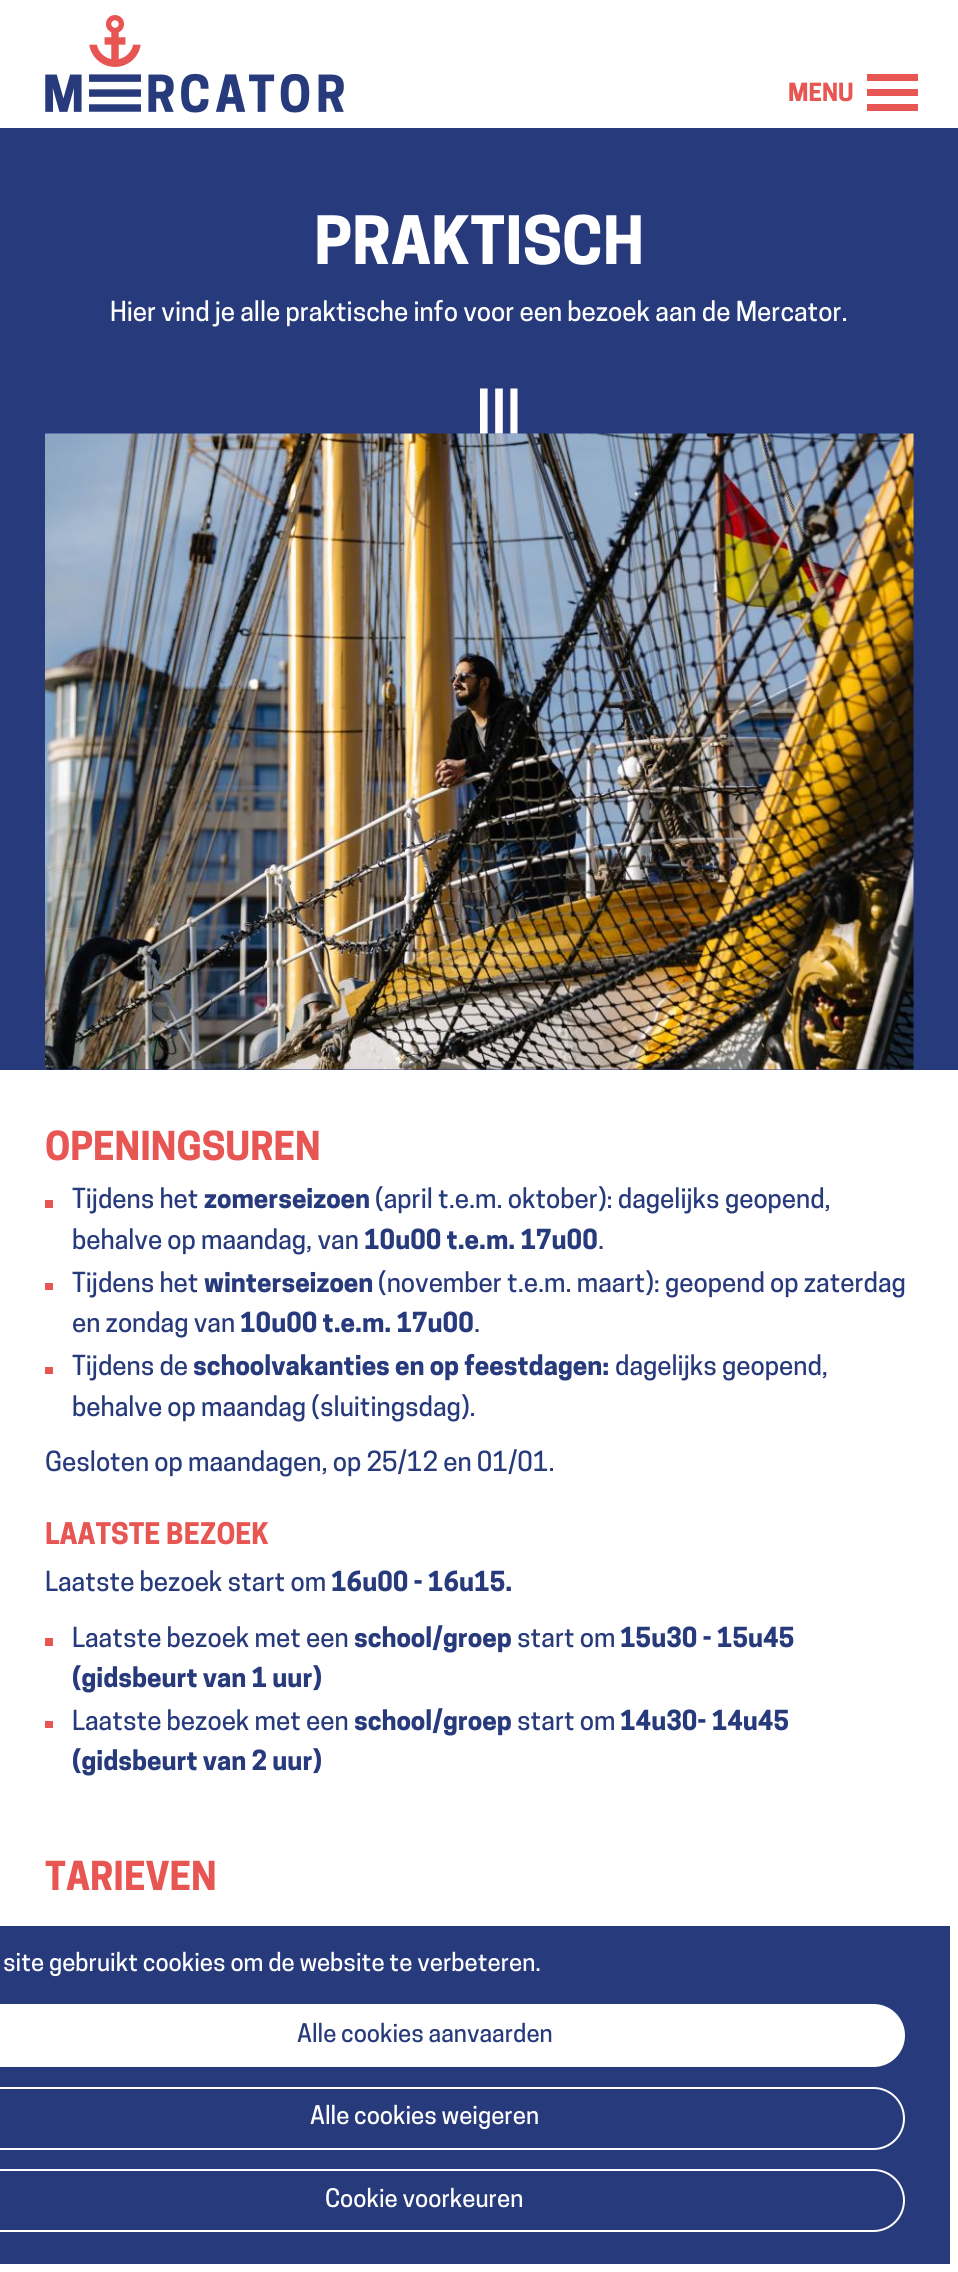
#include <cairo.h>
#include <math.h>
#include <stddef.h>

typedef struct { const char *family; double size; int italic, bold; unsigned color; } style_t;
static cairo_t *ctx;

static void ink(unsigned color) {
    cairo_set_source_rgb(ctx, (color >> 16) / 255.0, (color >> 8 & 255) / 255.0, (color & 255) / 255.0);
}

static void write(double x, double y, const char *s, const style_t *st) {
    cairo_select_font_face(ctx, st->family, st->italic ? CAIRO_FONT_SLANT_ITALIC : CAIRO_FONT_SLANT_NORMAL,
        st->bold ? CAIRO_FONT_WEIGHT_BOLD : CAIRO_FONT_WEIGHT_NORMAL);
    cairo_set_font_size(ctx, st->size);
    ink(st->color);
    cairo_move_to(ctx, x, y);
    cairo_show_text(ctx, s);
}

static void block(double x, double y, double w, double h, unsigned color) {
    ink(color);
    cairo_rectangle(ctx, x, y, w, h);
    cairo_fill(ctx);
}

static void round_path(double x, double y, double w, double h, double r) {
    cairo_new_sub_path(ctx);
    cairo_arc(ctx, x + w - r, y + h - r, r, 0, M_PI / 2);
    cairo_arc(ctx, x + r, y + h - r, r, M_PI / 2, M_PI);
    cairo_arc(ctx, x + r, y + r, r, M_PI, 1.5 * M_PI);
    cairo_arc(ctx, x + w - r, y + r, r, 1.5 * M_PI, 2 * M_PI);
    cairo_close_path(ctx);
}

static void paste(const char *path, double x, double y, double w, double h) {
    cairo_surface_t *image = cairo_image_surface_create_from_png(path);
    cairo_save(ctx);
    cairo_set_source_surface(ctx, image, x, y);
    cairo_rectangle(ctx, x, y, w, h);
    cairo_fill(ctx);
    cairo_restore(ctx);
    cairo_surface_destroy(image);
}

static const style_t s1 = {"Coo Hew", 23.5, 0, 1, 0xe85653};
static const style_t s2 = {"Coo Hew", 62.5, 0, 1, 0xffffff};
static const style_t s3 = {"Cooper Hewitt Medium", 25.95, 0, 0, 0xffffff};
static const style_t s4 = {"Coo Hew", 37.5, 0, 1, 0xe85653};
static const style_t s5 = {"Cooper Hewitt Medium", 25.95, 0, 0, 0x273a7c};
static const style_t s6 = {"Coo Hew", 25.95, 0, 1, 0x273a7c};
static const style_t s7 = {"Coo Hew", 28, 0, 1, 0xe85653};
static const style_t s8 = {"Cooper Hewitt Medium", 24, 0, 0, 0xffffff};
static const style_t s9 = {"Cooper Hewitt Medium", 24, 0, 0, 0x273a7c};

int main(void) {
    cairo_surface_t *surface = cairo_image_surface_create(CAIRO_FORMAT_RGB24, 958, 2272);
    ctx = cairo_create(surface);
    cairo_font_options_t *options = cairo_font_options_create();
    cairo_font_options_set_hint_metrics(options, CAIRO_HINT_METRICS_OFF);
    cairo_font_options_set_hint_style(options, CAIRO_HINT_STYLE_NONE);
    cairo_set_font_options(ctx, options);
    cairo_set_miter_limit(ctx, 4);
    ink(0xffffff);
    cairo_paint(ctx);
    paste("pic1.png", 45, 15, 299, 98);
    write(788, 101, "MENU", &s1);
    block(867, 74, 51, 7, 0xe85653);
    block(867, 89, 51, 7, 0xe85653);
    block(867, 104, 51, 7, 0xe85653);
    block(0, 128, 958, 942, 0x273a7c);
    write(314, 264, "PRAKTISCH", &s2);
    write(110, 321, "Hier vind je alle praktische info voor een bezoek aan de Mercator.", &s3);
    paste("pic3.png", 45, 433, 869, 637);
    paste("pic2.png", 480, 388, 38, 46);
    write(45, 1160, "OPENINGSUREN", &s4);
    block(45, 1200, 8, 8, 0xe85653);
    write(72, 1208, "Tijdens het", &s5);
    write(204, 1208, "zomerseizoen", &s6);
    write(375, 1208, "(april t.e.m. oktober): dagelijks geopend,", &s5);
    write(72, 1249, "behalve op maandag, van", &s5);
    write(364, 1249, "10u00 t.e.m. 17u00", &s6);
    write(598, 1249, ".", &s5);
    block(45, 1283, 8, 7, 0xe85653);
    write(72, 1292, "Tijdens het", &s5);
    write(204, 1292, "winterseizoen", &s6);
    write(378, 1292, "(november t.e.m. maart): geopend op zaterdag", &s5);
    write(72, 1332, "en zondag van", &s5);
    write(240, 1332, "10u00 t.e.m. 17u00", &s6);
    write(474, 1332, ".", &s5);
    block(45, 1367, 8, 7, 0xe85653);
    write(72, 1375, "Tijdens de", &s5);
    write(193, 1375, "schoolvakanties en op feestdagen:", &s6);
    write(615, 1375, "dagelijks geopend,", &s5);
    write(72, 1416, "behalve op maandag (sluitingsdag).", &s5);
    write(45, 1471, "Gesloten op maandagen, op 25/12 en 01/01.", &s5);
    write(45, 1544, "LAATSTE BEZOEK", &s7);
    write(45, 1591, "Laatste bezoek start om", &s5);
    write(331, 1591, "16u00 - 16u15.", &s6);
    block(45, 1638, 8, 8, 0xe85653);
    write(72, 1647, "Laatste bezoek met een", &s5);
    write(354, 1647, "school/groep", &s6);
    write(517, 1647, "start om", &s5);
    write(620, 1647, "15u30 - 15u45", &s6);
    write(72, 1687, "(gidsbeurt van 1 uur)", &s6);
    block(45, 1721, 8, 7, 0xe85653);
    write(72, 1730, "Laatste bezoek met een", &s5);
    write(354, 1730, "school/groep", &s6);
    write(517, 1730, "start om", &s5);
    write(620, 1730, "14u30- 14u45", &s6);
    write(72, 1770, "(gidsbeurt van 2 uur)", &s6);
    write(45, 1890, "TARIEVEN", &s4);
    block(0, 1926, 950, 338, 0x273a7c);
    write(3, 1971, "site gebruikt cookies om de website te verbeteren.", &s8);
    round_path(-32, 2004, 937, 63, 31.5);
    cairo_fill(ctx);
    write(297, 2042, "Alle cookies aanvaarden", &s9);
    round_path(-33, 2088, 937, 61, 30.5);
    ink(0xffffff);
    cairo_stroke(ctx);
    write(310, 2124, "Alle cookies weigeren", &s8);
    round_path(-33, 2170, 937, 61, 30.5);
    cairo_stroke(ctx);
    write(325, 2207, "Cookie voorkeuren", &s8);
    cairo_surface_write_to_png(surface, "screenshot.png");
    cairo_font_options_destroy(options);
    cairo_destroy(ctx);
    cairo_surface_destroy(surface);
    return 0;
}
